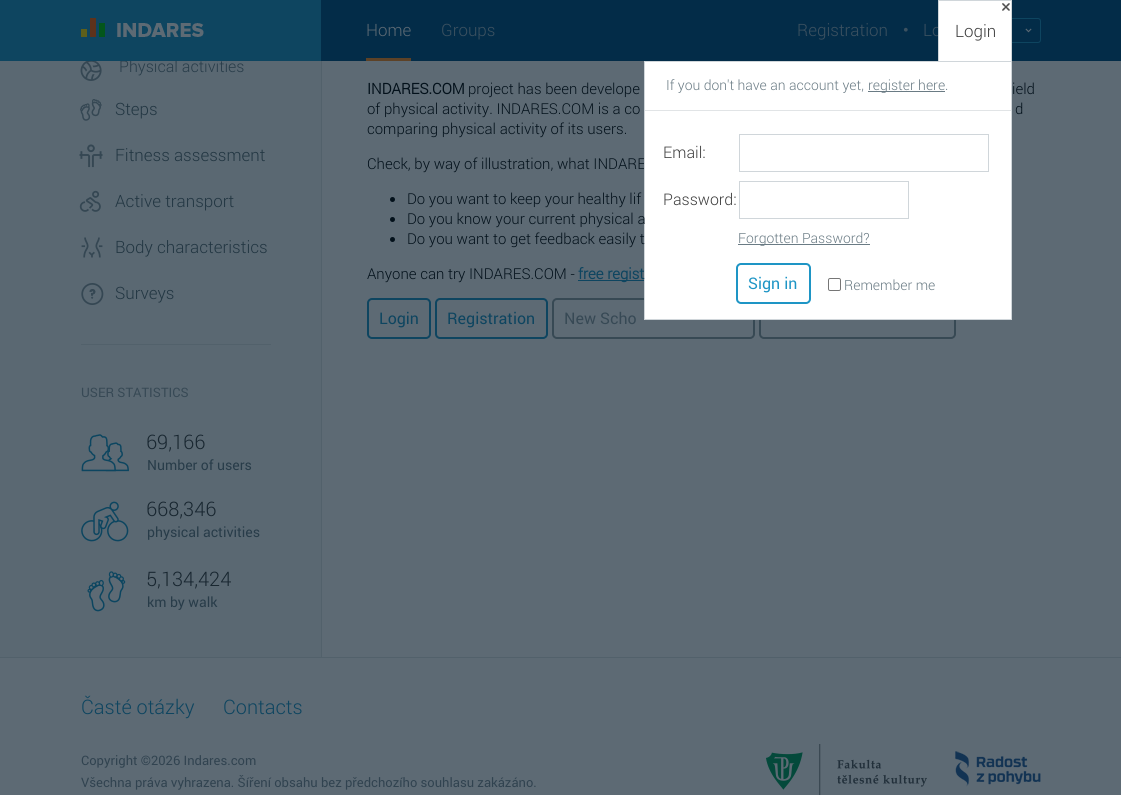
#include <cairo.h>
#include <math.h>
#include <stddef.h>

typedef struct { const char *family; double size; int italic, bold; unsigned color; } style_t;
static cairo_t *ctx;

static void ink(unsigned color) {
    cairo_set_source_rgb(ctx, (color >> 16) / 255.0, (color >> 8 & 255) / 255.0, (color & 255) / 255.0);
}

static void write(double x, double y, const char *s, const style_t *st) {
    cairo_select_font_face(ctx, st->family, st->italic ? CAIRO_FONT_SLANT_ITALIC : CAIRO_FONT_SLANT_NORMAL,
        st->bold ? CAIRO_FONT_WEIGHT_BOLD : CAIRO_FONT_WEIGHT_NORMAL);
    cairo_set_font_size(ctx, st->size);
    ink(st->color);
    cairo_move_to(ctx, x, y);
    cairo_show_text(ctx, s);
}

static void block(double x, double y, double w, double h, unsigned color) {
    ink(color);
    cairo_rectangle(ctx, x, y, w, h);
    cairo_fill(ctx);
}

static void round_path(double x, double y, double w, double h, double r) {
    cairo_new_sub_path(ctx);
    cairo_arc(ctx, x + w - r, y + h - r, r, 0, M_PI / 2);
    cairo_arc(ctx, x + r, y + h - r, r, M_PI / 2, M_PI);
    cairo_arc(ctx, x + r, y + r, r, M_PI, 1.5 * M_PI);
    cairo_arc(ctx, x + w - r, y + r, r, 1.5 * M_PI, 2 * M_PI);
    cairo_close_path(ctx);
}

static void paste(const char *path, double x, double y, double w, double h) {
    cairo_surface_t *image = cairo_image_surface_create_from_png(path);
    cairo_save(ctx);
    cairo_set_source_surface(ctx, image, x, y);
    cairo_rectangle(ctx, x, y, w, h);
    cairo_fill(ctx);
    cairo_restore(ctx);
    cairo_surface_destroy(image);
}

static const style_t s1 = {"Roboto Light", 16, 0, 0, 0x283c49};
static const style_t s2 = {"Roboto Light", 17, 0, 0, 0x5d6a74};
static const style_t s3 = {"Roboto Light", 17, 0, 0, 0x3c5160};
static const style_t s4 = {"Liberation Serif", 16, 0, 0, 0x3c5160};
static const style_t s5 = {"Roboto Light", 17, 0, 0, 0x3c3c3c};
static const style_t s6 = {"Roboto Light", 15, 0, 0, 0x03111b};
static const style_t s7 = {"Roboto Light", 14, 0, 0, 0x6a7b84};
static const style_t s8 = {"Roboto Light", 16, 0, 0, 0x3c3c3c};
static const style_t s9 = {"Roboto", 16, 0, 0, 0x1e95c5};
static const style_t s10 = {"Roboto Light", 17, 0, 0, 0x223642};
static const style_t s11 = {"Roboto", 13, 0, 0, 0x374955};
static const style_t s12 = {"Roboto Light", 20, 0, 0, 0x182630};
static const style_t s13 = {"Roboto", 14, 0, 0, 0x283c49};
static const style_t s14 = {"Roboto", 15, 0, 1, 0x03111b};
static const style_t s15 = {"Roboto", 15, 0, 1, 0x0e4560};
static const style_t s16 = {"Roboto", 16, 0, 0, 0x0e4560};
static const style_t s17 = {"Roboto", 16, 0, 0, 0x374955};
static const style_t s18 = {"Roboto Light", 20, 0, 0, 0x0e4560};
static const style_t s19 = {"Roboto", 13, 0, 0, 0x314350};

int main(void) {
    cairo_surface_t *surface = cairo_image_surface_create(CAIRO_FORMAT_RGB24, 1121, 795);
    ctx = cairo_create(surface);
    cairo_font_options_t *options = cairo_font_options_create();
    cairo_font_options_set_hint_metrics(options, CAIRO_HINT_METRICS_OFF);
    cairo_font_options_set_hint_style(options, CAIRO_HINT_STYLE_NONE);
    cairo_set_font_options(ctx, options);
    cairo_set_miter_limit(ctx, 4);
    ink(0x5d6a74);
    cairo_paint(ctx);
    block(321, 0, 800, 61, 0x032c48);
    block(0, 61, 321, 596, 0x5a6872);
    write(119, 72, "Physical activities", &s1);
    block(0, 0, 321, 61, 0x0e4560);
    block(81, 29, 6, 8, 0x5d5f1b);
    block(90, 18, 6, 19, 0x5d321b);
    block(99, 23, 6, 14, 0x03561b);
    paste("pic1.png", 117, 23, 87, 14);
    block(366, 58, 45, 3, 0x5d4227);
    write(366, 36, "Home", &s2);
    write(441, 36, "Groups", &s3);
    write(797, 36, "Registration", &s3);
    write(903, 35, "•", &s4);
    write(923, 36, "Lo", &s3);
    round_path(995.5, 18.5, 45, 24, 2.5);
    ink(0x0e4560);
    cairo_set_line_width(ctx, 1);
    cairo_stroke(ctx);
    paste("pic2.png", 1025, 28, 7, 5);
    block(939, 1, 72, 60, 0xffffff);
    paste("pic3.png", 1002, 3, 8, 8);
    block(938, 0, 74, 1, 0xd0d6da);
    block(1011, 0, 1, 62, 0xd0d6da);
    block(938, 0, 1, 62, 0xd0d6da);
    write(955, 37, "Login", &s5);
    write(367, 169, "Check, by way of illustration, what INDARE", &s6);
    round_path(553, 299, 201, 39, 4);
    ink(0x374954);
    cairo_set_line_width(ctx, 2);
    cairo_stroke(ctx);
    round_path(760, 299, 195, 39, 4);
    cairo_stroke(ctx);
    ink(0xffffff);
    cairo_rectangle(ctx, 644.5, 61.5, 367, 258);
    cairo_fill_preserve(ctx);
    ink(0xd0d6da);
    cairo_set_line_width(ctx, 1);
    cairo_stroke(ctx);
    write(666, 90, "If you don't have an account yet,", &s7);
    block(868, 91, 77, 1, 0x6a7b84);
    write(868, 90, "register here.", &s7);
    block(645, 110, 366, 1, 0xe1e4e6);
    write(663, 158, "Email:", &s8);
    cairo_rectangle(ctx, 739.5, 134.5, 249, 37);
    ink(0xd0d6da);
    cairo_stroke(ctx);
    write(663, 205, "Password:", &s8);
    cairo_rectangle(ctx, 739.5, 181.5, 169, 37);
    ink(0xd0d6da);
    cairo_stroke(ctx);
    block(738, 244, 132, 1, 0x6a7b84);
    write(738, 243, "Forgotten Password?", &s7);
    round_path(737, 264, 73, 39, 4);
    ink(0x1e95c5);
    cairo_set_line_width(ctx, 2);
    cairo_stroke(ctx);
    write(748, 289, "Sign in", &s9);
    round_path(828.5, 278.5, 12, 12, 1.5);
    ink(0x767676);
    cairo_set_line_width(ctx, 1);
    cairo_stroke(ctx);
    write(844, 290, "Remember me", &s7);
    block(321, 61, 1, 596, 0x52616b);
    paste("pic4.png", 80, 61, 22, 20);
    paste("pic5.png", 80, 99, 22, 22);
    write(115, 115, "Steps", &s10);
    paste("pic6.png", 79, 144, 24, 24);
    write(115, 161, "Fitness assessment", &s10);
    paste("pic7.png", 79, 190, 22, 22);
    write(115, 207, "Active transport", &s10);
    paste("pic8.png", 81, 237, 22, 21);
    write(115, 253, "Body characteristics", &s10);
    paste("pic9.png", 81, 283, 23, 22);
    write(115, 299, "Surveys", &s10);
    block(81, 344, 190, 1, 0x52616b);
    write(81, 397, "USER STATISTICS", &s11);
    paste("pic10.png", 81, 434, 48, 38);
    write(146, 449, "69,166", &s12);
    write(147, 470, "Number of users", &s13);
    paste("pic11.png", 81, 501, 48, 41);
    write(146, 516, "668,346", &s12);
    write(147, 537, "physical activities", &s13);
    paste("pic12.png", 87, 571, 39, 41);
    write(146, 586, "5,134,424", &s12);
    write(147, 607, "km by walk", &s13);
    write(367, 94, "INDARES.COM", &s14);
    write(468, 94, "project has been develope", &s6);
    write(1012, 94, "ield", &s6);
    write(367, 114, "of physical activity. INDARES.COM is a co", &s6);
    write(1015, 114, "d", &s6);
    write(367, 134, "comparing physical activity of its users.", &s6);
    cairo_new_path(ctx);
    cairo_arc(ctx, 392.5, 199.5, 2.5, 0, 2 * M_PI);
    cairo_fill(ctx);
    write(407, 204, "Do you want to keep your healthy lif", &s6);
    cairo_new_path(ctx);
    cairo_arc(ctx, 392.5, 219.5, 2.5, 0, 2 * M_PI);
    cairo_fill(ctx);
    write(407, 224, "Do you know your current physical a", &s6);
    cairo_new_path(ctx);
    cairo_arc(ctx, 392.5, 239.5, 2.5, 0, 2 * M_PI);
    cairo_fill(ctx);
    write(407, 244, "Do you want to get feedback easily t", &s6);
    write(367, 279, "Anyone can try INDARES.COM -", &s6);
    block(578, 280, 66, 1, 0x0e4560);
    write(578, 279, "free regist", &s15);
    round_path(368, 299, 62, 39, 4);
    cairo_set_line_width(ctx, 2);
    cairo_stroke(ctx);
    write(379, 324, "Login", &s16);
    round_path(436, 299, 111, 39, 4);
    cairo_stroke(ctx);
    write(447, 324, "Registration", &s16);
    write(564, 324, "New Scho", &s17);
    block(0, 657, 1121, 1, 0x52616b);
    write(81, 714, "Časté otázky", &s18);
    write(223, 714, "Contacts", &s18);
    write(81, 765, "Copyright ©2026 Indares.com", &s19);
    write(81, 787, "Všechna práva vyhrazena. Šíření obsahu bez předchozího souhlasu zakázáno.", &s19);
    paste("pic13.png", 766, 744, 161, 51);
    paste("pic14.png", 955, 751, 86, 36);
    cairo_surface_write_to_png(surface, "screenshot.png");
    cairo_font_options_destroy(options);
    cairo_destroy(ctx);
    cairo_surface_destroy(surface);
    return 0;
}
